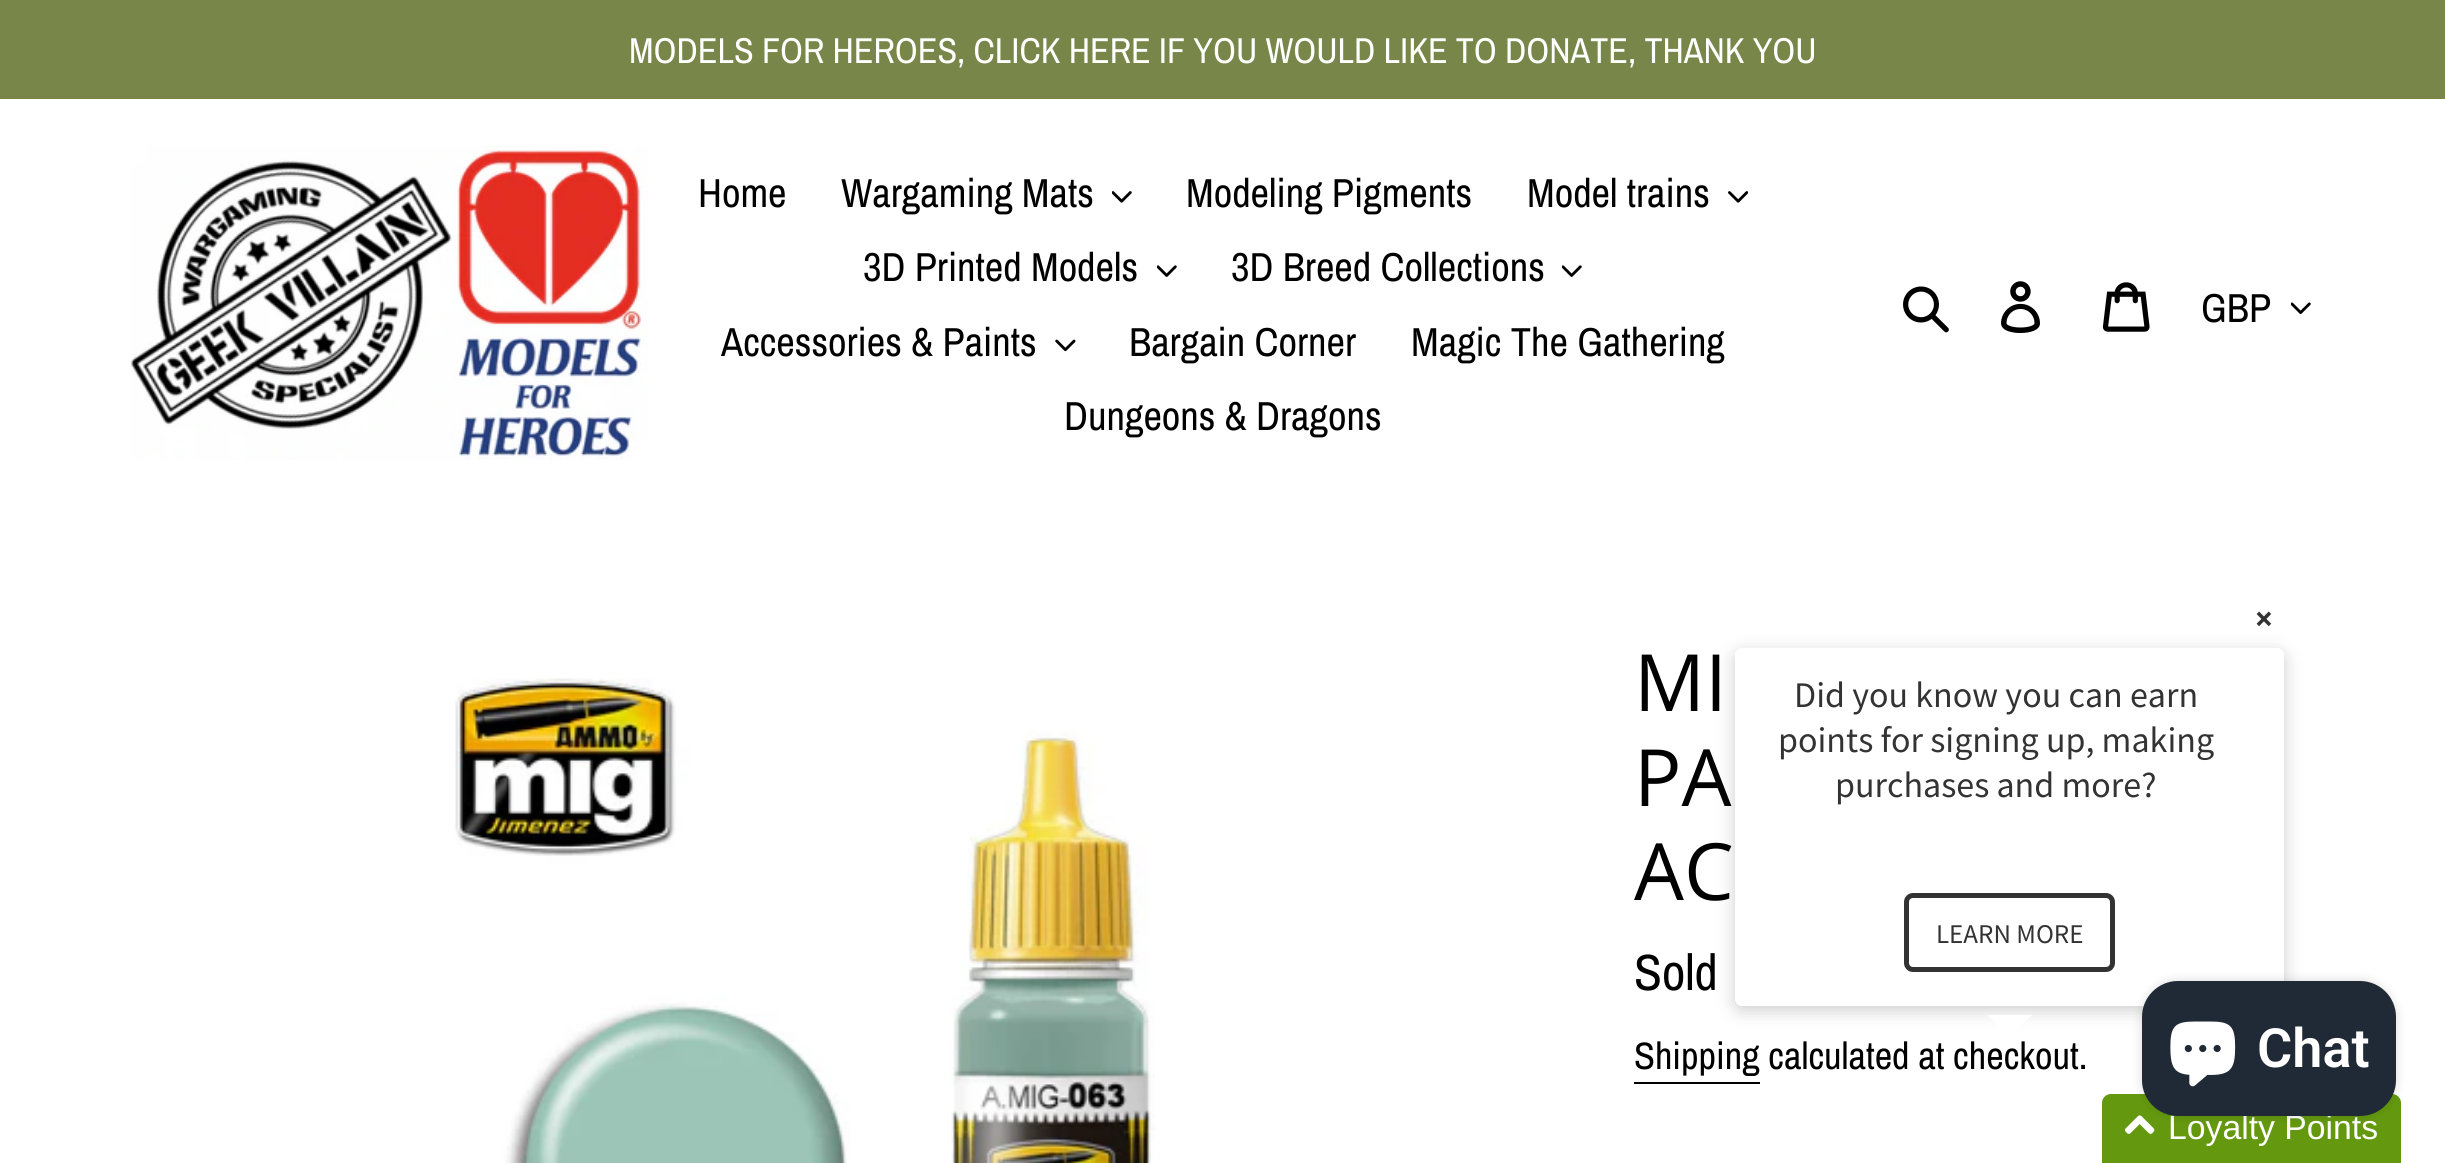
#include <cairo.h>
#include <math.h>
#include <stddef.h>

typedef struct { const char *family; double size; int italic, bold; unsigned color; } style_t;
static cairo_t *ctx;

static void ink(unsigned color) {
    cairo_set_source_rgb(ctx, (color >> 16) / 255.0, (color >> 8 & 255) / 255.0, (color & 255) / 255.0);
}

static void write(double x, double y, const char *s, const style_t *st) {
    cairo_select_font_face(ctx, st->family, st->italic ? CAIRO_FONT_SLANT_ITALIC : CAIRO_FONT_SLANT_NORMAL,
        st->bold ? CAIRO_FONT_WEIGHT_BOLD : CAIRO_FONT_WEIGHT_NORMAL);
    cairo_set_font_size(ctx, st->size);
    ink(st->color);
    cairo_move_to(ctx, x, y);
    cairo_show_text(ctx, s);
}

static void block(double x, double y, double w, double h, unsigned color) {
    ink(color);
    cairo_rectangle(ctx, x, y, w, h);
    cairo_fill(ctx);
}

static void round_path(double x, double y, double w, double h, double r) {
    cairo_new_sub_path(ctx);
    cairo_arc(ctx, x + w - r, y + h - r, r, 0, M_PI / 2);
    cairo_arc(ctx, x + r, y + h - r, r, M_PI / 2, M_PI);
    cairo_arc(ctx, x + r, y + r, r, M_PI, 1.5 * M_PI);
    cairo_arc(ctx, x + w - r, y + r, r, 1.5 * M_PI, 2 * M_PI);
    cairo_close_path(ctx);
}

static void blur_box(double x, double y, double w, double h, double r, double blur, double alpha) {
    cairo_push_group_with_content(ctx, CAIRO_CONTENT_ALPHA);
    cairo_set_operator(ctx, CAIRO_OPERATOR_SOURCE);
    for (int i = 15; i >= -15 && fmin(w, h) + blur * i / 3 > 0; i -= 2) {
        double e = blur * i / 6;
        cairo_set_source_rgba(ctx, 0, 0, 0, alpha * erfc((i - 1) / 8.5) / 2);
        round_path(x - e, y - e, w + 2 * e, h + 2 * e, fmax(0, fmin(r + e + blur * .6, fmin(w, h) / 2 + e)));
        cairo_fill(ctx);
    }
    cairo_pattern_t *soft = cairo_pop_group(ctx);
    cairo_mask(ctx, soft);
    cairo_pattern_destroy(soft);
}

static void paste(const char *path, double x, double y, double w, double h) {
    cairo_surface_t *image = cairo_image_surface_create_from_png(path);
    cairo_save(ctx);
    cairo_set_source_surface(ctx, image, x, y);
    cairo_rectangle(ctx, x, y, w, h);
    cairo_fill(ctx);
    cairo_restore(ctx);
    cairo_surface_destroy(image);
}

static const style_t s1 = {"Archivo Narrow", 36, 0, 0, 0xffffff};
static const style_t s2 = {"Archivo Narrow", 40.5, 0, 0, 0x000000};
static const style_t s3 = {"Source Sans Pro", 33.75, 0, 1, 0x333333};
static const style_t s4 = {"Source Sans Pro", 36, 0, 0, 0x333333};
static const style_t s5 = {"Source Sans Pro", 27, 0, 0, 0x333333};
static const style_t s6 = {"Liberation Sans", 33.75, 0, 0, 0xffffff};
static const style_t s7 = {"Open Sans", 79, 0, 0, 0x000000};
static const style_t s8 = {"Archivo Narrow", 51, 0, 0, 0x000000};
static const style_t s9 = {"Archivo Narrow", 38.25, 0, 0, 0x000000};
static const style_t s10 = {"Roboto SemiBold", 54, 0, 0, 0xffffff};

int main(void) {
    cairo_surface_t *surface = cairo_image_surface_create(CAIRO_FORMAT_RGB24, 2445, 1163);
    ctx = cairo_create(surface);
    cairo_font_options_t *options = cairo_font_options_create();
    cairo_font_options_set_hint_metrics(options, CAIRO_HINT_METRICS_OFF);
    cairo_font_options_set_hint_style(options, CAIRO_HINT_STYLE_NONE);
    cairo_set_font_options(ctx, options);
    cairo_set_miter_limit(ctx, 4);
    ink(0xffffff);
    cairo_paint(ctx);
    block(0, 0, 2445, 99, 0x788749);
    write(629, 63, "MODELS FOR HEROES, CLICK HERE IF YOU WOULD LIKE TO DONATE, THANK YOU", &s1);
    paste("pic1.png", 131, 146, 517, 314);
    write(698, 207, "Home", &s2);
    write(841, 207, "Wargaming Mats", &s2);
    paste("pic2.png", 1112, 191, 20, 12);
    write(1186, 207, "Modeling Pigments", &s2);
    write(1527, 207, "Model trains", &s2);
    paste("pic3.png", 1728, 191, 20, 12);
    write(863, 281, "3D Printed Models", &s2);
    paste("pic4.png", 1157, 265, 20, 12);
    write(1231, 281, "3D Breed Collections", &s2);
    paste("pic4.png", 1562, 265, 20, 12);
    write(721, 356, "Accessories & Paints", &s2);
    paste("pic5.png", 1055, 339, 21, 13);
    write(1129, 356, "Bargain Corner", &s2);
    write(1411, 356, "Magic The Gathering", &s2);
    write(1064, 430, "Dungeons & Dragons", &s2);
    paste("pic6.png", 1903, 286, 46, 47);
    paste("pic7.png", 2001, 281, 39, 52);
    paste("pic8.png", 2102, 282, 48, 50);
    write(2201, 322, "GBP", &s2);
    paste("pic9.png", 2291, 302, 20, 12);
    write(2255, 630, "×", &s3);
    ink(0x000000);
    blur_box(1735, 653, 549, 357, 7, 9, 0.2);
    ink(0xffffff);
    round_path(1735, 648, 549, 358, 7);
    cairo_fill(ctx);
    write(1794, 707, "Did you know you can earn", &s4);
    write(1778, 752, "points for signing up, making", &s4);
    write(1835, 797, "purchases and more?", &s4);
    round_path(1906.5, 895.5, 206, 74, 6.5);
    cairo_set_line_width(ctx, 5);
    cairo_stroke(ctx);
    write(1936, 943, "LEARN MORE", &s5);
    ink(0xffffff);
    cairo_new_path(ctx);
    cairo_move_to(ctx, 1987, 1015);
    cairo_line_to(ctx, 2032, 1015);
    cairo_line_to(ctx, 2009, 1037);
    cairo_close_path(ctx);
    cairo_fill(ctx);
    ink(0x64990f);
    cairo_new_path(ctx);
    cairo_move_to(ctx, 2111, 1094);
    cairo_line_to(ctx, 2392, 1094);
    cairo_curve_to(ctx, 2397, 1094, 2401, 1098, 2401, 1103);
    cairo_line_to(ctx, 2401, 1163);
    cairo_line_to(ctx, 2102, 1163);
    cairo_line_to(ctx, 2102, 1103);
    cairo_curve_to(ctx, 2102, 1098, 2106, 1094, 2111, 1094);
    cairo_close_path(ctx);
    cairo_fill(ctx);
    paste("pic10.png", 2125, 1115, 30, 19);
    write(2168, 1139, "Loyalty Points", &s6);
    paste("pic11.png", 454, 678, 701, 485);
    write(1634, 711, "MI", &s7);
    write(1634, 806, "PA", &s7);
    write(1634, 900, "AC", &s7);
    write(1634, 990, "Sold", &s8);
    write(1634, 1069, "Shipping calculated at checkout.", &s9);
    block(1634, 1082, 126, 2, 0x000000);
    ink(0x000000);
    blur_box(2142, 981, 254, 135, 36, 5.5, 0.15);
    ink(0x202a36);
    round_path(2142, 981, 254, 135, 36);
    cairo_fill(ctx);
    paste("pic12.png", 2170, 1021, 66, 66);
    write(2257, 1067, "Chat", &s10);
    cairo_surface_write_to_png(surface, "screenshot.png");
    cairo_font_options_destroy(options);
    cairo_destroy(ctx);
    cairo_surface_destroy(surface);
    return 0;
}
